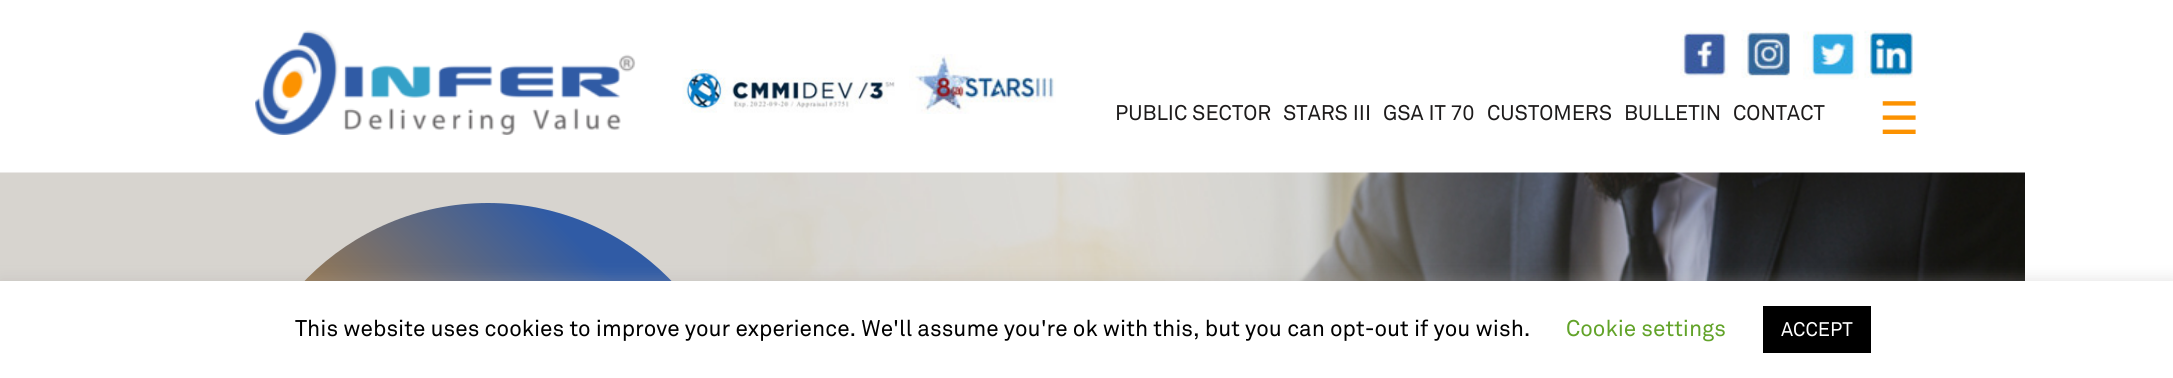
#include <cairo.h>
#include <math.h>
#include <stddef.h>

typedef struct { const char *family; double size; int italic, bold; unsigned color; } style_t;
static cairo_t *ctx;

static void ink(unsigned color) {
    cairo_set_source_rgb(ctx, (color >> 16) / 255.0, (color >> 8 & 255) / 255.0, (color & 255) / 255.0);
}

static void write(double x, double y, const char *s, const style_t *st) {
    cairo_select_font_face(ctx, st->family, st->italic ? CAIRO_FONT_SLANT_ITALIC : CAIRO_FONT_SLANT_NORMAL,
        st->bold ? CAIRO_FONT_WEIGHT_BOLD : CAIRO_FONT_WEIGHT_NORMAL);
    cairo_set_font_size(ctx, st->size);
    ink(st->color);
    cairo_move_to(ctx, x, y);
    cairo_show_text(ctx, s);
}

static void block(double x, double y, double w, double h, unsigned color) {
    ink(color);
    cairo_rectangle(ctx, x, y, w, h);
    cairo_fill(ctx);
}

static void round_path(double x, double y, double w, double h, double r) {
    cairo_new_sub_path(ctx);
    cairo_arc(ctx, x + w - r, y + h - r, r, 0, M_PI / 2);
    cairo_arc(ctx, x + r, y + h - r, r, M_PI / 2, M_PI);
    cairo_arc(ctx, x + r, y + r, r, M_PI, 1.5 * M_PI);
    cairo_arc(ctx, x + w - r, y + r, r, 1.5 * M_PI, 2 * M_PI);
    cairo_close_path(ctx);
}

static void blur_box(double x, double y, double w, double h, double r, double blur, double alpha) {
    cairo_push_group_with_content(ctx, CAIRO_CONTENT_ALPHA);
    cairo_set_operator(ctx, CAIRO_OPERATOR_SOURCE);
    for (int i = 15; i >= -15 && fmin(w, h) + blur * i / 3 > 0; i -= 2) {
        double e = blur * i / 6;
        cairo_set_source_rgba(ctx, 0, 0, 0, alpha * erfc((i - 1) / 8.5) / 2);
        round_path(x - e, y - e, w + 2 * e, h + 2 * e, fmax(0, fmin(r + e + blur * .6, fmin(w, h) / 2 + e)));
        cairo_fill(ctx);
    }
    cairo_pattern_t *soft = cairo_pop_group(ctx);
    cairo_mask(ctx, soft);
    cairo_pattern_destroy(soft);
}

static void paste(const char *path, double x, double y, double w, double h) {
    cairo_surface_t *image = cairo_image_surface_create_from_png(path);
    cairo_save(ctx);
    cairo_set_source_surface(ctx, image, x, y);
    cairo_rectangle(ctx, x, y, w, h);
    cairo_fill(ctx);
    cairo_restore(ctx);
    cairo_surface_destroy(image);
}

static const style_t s1 = {"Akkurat", 21, 0, 0, 0x1d1b1b};
static const style_t s2 = {"DejaVu Sans", 45, 0, 0, 0xfc9200};
static const style_t s3 = {"Akkurat", 22.5, 0, 0, 0x000000};
static const style_t s4 = {"Akkurat", 22.5, 0, 0, 0x62a329};
static const style_t s5 = {"Akkurat", 19.5, 0, 0, 0xffffff};

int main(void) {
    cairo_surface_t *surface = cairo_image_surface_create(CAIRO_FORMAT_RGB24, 2173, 378);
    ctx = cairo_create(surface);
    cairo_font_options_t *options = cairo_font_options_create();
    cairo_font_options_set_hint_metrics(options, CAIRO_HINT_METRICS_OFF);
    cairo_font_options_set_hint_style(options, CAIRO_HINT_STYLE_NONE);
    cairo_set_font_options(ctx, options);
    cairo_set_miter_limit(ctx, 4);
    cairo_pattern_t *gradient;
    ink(0xffffff);
    cairo_paint(ctx);
    paste("pic1.png", 255, 30, 381, 105);
    paste("pic2.png", 682, 69, 213, 44);
    paste("pic3.png", 909, 54, 147, 60);
    paste("pic4.png", 1680, 30, 48, 48);
    paste("pic5.png", 1741, 30, 49, 48);
    paste("pic6.png", 1803, 31, 56, 49);
    paste("pic7.png", 1864, 30, 49, 48);
    write(1115, 120, "PUBLIC SECTOR", &s1);
    write(1283, 120, "STARS III", &s1);
    write(1383, 120, "GSA IT 70", &s1);
    write(1487, 120, "CUSTOMERS", &s1);
    write(1624, 120, "BULLETIN", &s1);
    write(1733, 120, "CONTACT", &s1);
    write(1879, 134, "☰", &s2);
    paste("pic8.png", 0, 172, 2025, 109);
    gradient = cairo_pattern_create_linear(233, 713, 743, 202);
    cairo_pattern_add_color_stop_rgba(gradient, 0, 0.965, 0.573, 0.02, 1);
    cairo_pattern_add_color_stop_rgba(gradient, 0.5, 0.576, 0.467, 0.333, 1);
    cairo_pattern_add_color_stop_rgba(gradient, 0.8, 0.188, 0.357, 0.647, 1);
    cairo_set_source(ctx, gradient);
    cairo_pattern_destroy(gradient);
    round_path(233, 203, 510, 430, 255);
    cairo_fill(ctx);
    ink(0xacabab);
    blur_box(0, 279, 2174, 98, 0, 7.5, 0.3);
    block(0, 281, 2173, 97, 0xffffff);
    write(295, 336, "This website uses cookies to improve your experience. We'll assume you're ok with this, but you can opt-out if you wish.", &s3);
    write(1566, 336, "Cookie settings", &s4);
    block(1763, 306, 108, 47, 0x000000);
    write(1781, 336, "ACCEPT", &s5);
    cairo_surface_write_to_png(surface, "screenshot.png");
    cairo_font_options_destroy(options);
    cairo_destroy(ctx);
    cairo_surface_destroy(surface);
    return 0;
}
